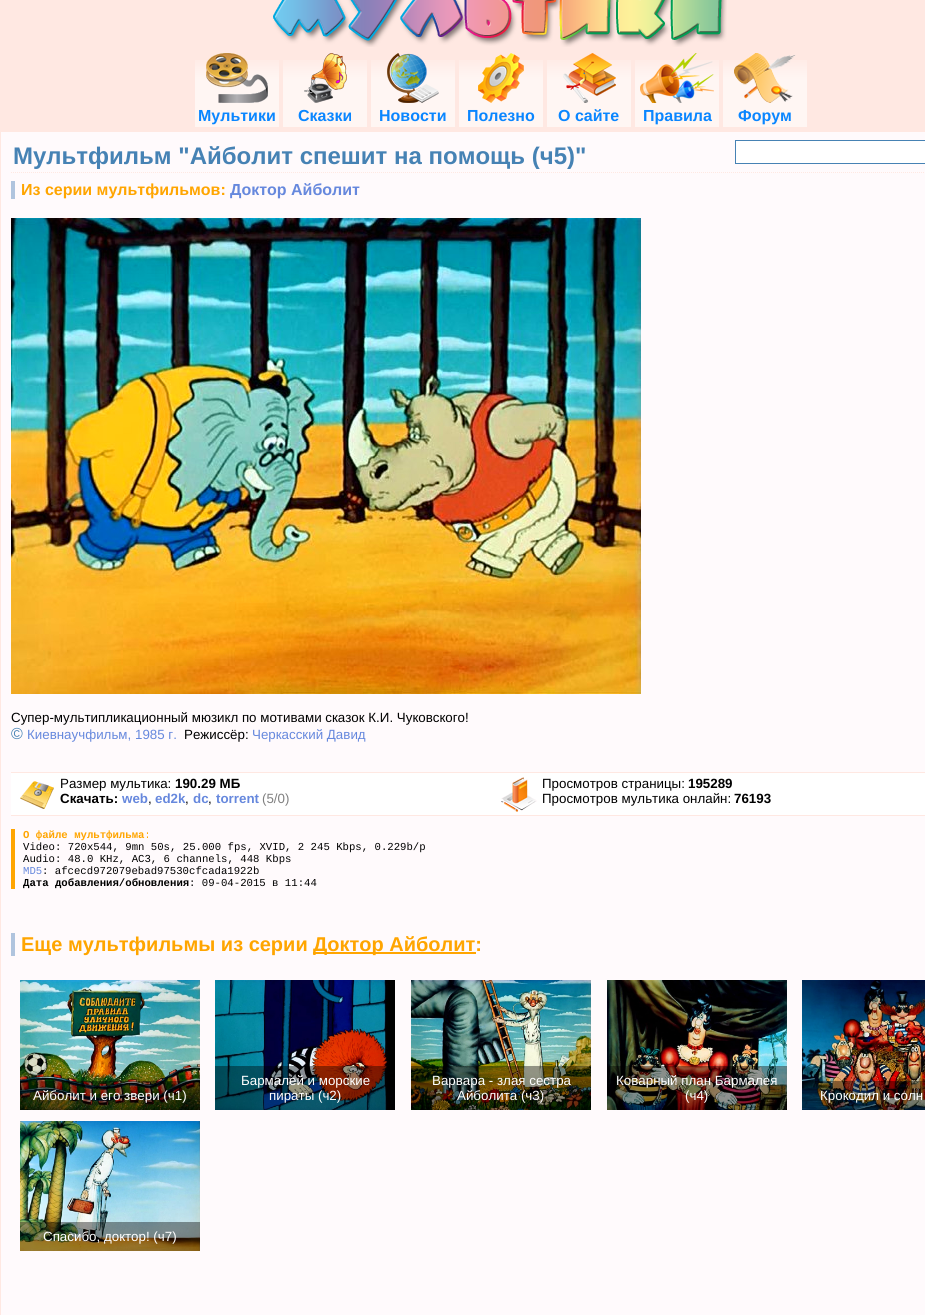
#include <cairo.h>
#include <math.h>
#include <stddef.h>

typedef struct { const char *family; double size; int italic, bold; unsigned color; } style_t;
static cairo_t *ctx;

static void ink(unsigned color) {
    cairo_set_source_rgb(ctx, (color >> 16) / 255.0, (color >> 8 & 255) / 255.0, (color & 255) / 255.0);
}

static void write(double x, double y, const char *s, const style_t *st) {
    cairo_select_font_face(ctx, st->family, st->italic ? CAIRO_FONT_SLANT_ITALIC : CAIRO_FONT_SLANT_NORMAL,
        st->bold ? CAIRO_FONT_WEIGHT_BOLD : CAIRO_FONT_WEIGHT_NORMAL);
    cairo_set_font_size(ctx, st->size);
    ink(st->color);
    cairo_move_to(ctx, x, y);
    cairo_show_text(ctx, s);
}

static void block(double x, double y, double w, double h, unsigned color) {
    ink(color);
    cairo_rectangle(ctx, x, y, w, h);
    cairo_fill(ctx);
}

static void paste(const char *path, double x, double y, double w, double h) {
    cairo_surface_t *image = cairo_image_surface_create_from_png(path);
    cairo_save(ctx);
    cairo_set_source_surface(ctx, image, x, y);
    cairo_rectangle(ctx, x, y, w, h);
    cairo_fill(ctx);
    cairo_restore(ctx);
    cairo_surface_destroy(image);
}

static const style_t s1 = {"Liberation Sans", 16, 0, 1, 0x0a86ff};
static const style_t s2 = {"Liberation Sans", 24, 0, 1, 0x4682b4};
static const style_t s3 = {"Liberation Sans", 16, 0, 1, 0xffa500};
static const style_t s4 = {"Liberation Sans", 16, 0, 1, 0x6688dd};
static const style_t s5 = {"Liberation Sans", 13.35, 0, 0, 0x000000};
static const style_t s6 = {"Liberation Sans", 16, 0, 0, 0x4682b4};
static const style_t s7 = {"Liberation Sans", 13.35, 0, 0, 0x6688dd};
static const style_t s8 = {"Liberation Sans", 13.35, 0, 1, 0x000000};
static const style_t s9 = {"Liberation Sans", 13.35, 0, 1, 0x6688dd};
static const style_t s10 = {"Liberation Sans", 13.35, 0, 0, 0x808080};
static const style_t s11 = {"Liberation Mono", 10.65, 0, 1, 0xffa500};
static const style_t s12 = {"Liberation Mono", 10.65, 0, 0, 0x000000};
static const style_t s13 = {"Liberation Mono", 10.65, 0, 0, 0x6688dd};
static const style_t s14 = {"Liberation Mono", 10.65, 0, 1, 0x000000};
static const style_t s15 = {"Liberation Sans", 20, 0, 1, 0xffa500};
static const style_t s16 = {"Liberation Sans", 13.35, 0, 0, 0xffffff};

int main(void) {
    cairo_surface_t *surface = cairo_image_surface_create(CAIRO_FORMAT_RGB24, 925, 1315);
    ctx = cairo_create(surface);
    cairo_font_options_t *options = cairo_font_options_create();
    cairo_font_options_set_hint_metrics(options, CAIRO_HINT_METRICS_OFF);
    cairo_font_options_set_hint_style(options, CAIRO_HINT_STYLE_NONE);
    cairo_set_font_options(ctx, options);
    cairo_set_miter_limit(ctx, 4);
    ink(0xfffafc);
    cairo_paint(ctx);
    block(0, 0, 1, 1315, 0xffe8e2);
    block(1, 0, 924, 132, 0xffe8e2);
    paste("pic1.png", 273, 0, 454, 47);
    paste("pic2.png", 195, 60, 84, 67);
    paste("pic3.png", 206, 53, 62, 50);
    write(198, 121, "Мультики", &s1);
    paste("pic2.png", 283, 60, 84, 67);
    paste("pic4.png", 304, 53, 43, 50);
    write(298, 121, "Сказки", &s1);
    paste("pic2.png", 371, 60, 84, 67);
    paste("pic5.png", 387, 53, 52, 50);
    write(379, 121, "Новости", &s1);
    paste("pic2.png", 459, 60, 84, 67);
    paste("pic6.png", 478, 53, 46, 50);
    write(467, 121, "Полезно", &s1);
    paste("pic2.png", 547, 60, 84, 67);
    paste("pic7.png", 563, 53, 53, 50);
    write(558, 121, "О сайте", &s1);
    paste("pic2.png", 635, 60, 84, 67);
    paste("pic8.png", 640, 53, 74, 50);
    write(643, 121, "Правила", &s1);
    paste("pic2.png", 723, 60, 84, 67);
    paste("pic9.png", 734, 53, 62, 50);
    write(738, 121, "Форум", &s1);
    cairo_new_path(ctx);
    cairo_move_to(ctx, 11, 172.5);
    cairo_line_to(ctx, 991, 172.5);
    ink(0xffe8e2);
    cairo_set_line_width(ctx, 1);
    cairo_set_dash(ctx, (double[]){1, 1}, 2, 0);
    cairo_stroke(ctx);
    write(13, 164, "Мультфильм \"Айболит спешит на помощь (ч5)\"", &s2);
    ink(0xffffff);
    cairo_rectangle(ctx, 735.5, 140.5, 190, 23);
    cairo_fill_preserve(ctx);
    ink(0x4682b4);
    cairo_set_dash(ctx, NULL, 0, 0);
    cairo_stroke(ctx);
    block(11, 181, 4, 18, 0xb0c4de);
    write(21, 195, "Из серии мультфильмов:", &s3);
    write(230, 195, "Доктор Айболит", &s4);
    paste("pic10.png", 11, 218, 630, 476);
    write(11, 722, "Супер-мультипликационный мюзикл по мотивами сказок К.И. Чуковского!", &s5);
    write(11, 739, "©", &s6);
    write(27, 739, "Киевнаучфильм, 1985 г.", &s7);
    write(184, 739, "Режиссёр:", &s5);
    write(252, 739, "Черкасский Давид", &s7);
    block(11, 773, 914, 42, 0xffffff);
    block(11, 772, 914, 1, 0xffe8e2);
    block(11, 815, 914, 1, 0xffe8e2);
    paste("pic11.png", 20, 781, 34, 28);
    write(60, 788, "Размер мультика:", &s5);
    write(175, 788, "190.29 МБ", &s8);
    write(60, 803, "Скачать:", &s8);
    write(122, 803, "web", &s9);
    write(148, 803, ",", &s5);
    write(155, 803, "ed2k", &s9);
    write(185, 803, ",", &s5);
    write(193, 803, "dc", &s9);
    write(208, 803, ",", &s5);
    write(216, 803, "torrent", &s9);
    write(262, 803, "(5/0)", &s10);
    paste("pic12.png", 501, 777, 36, 35);
    write(542, 788, "Просмотров страницы:", &s5);
    write(688, 788, "195289", &s8);
    write(542, 803, "Просмотров мультика онлайн:", &s5);
    write(734, 803, "76193", &s8);
    block(11, 829, 4, 60, 0xffa500);
    write(23, 838, "О файле мультфильма:", &s11);
    write(23, 850, "Video: 720x544, 9mn 50s, 25.000 fps, XVID, 2 245 Kbps, 0.229b/p", &s12);
    write(23, 862, "Audio: 48.0 KHz, AC3, 6 channels, 448 Kbps", &s12);
    write(23, 874, "MD5", &s13);
    write(42, 874, ": afcecd972079ebad97530cfcada1922b", &s12);
    write(23, 886, "Дата добавления/обновления", &s14);
    write(189, 886, ": 09-04-2015 в 11:44", &s12);
    block(11, 933, 4, 23, 0xb0c4de);
    write(21, 951, "Еще мультфильмы из серии", &s15);
    block(313, 952, 163, 2, 0xffa500);
    write(313, 951, "Доктор Айболит:", &s15);
    paste("pic13.png", 20, 980, 180, 130);
    cairo_set_source_rgba(ctx, 0, 0, 0, 0.4);
    cairo_rectangle(ctx, 20, 1081, 180, 29);
    cairo_fill(ctx);
    write(33, 1100, "Айболит и его звери (ч1)", &s16);
    paste("pic14.png", 215, 980, 180, 130);
    cairo_set_source_rgba(ctx, 0, 0, 0, 0.4);
    cairo_rectangle(ctx, 215, 1066, 177, 44);
    cairo_fill(ctx);
    write(241, 1085, "Бармалей и морские", &s16);
    write(269, 1100, "пираты (ч2)", &s16);
    paste("pic15.png", 411, 980, 180, 130);
    cairo_set_source_rgba(ctx, 0, 0, 0, 0.4);
    cairo_rectangle(ctx, 411, 1066, 180, 44);
    cairo_fill(ctx);
    write(432, 1085, "Варвара - злая сестра", &s16);
    write(457, 1100, "Айболита (ч3)", &s16);
    paste("pic16.png", 607, 980, 180, 130);
    cairo_set_source_rgba(ctx, 0, 0, 0, 0.4);
    cairo_rectangle(ctx, 607, 1066, 180, 44);
    cairo_fill(ctx);
    write(616, 1085, "Коварный план Бармалея", &s16);
    write(685, 1100, "(ч4)", &s16);
    paste("pic17.png", 802, 980, 123, 130);
    cairo_set_source_rgba(ctx, 0, 0, 0, 0.4);
    cairo_rectangle(ctx, 802, 1081, 123, 29);
    cairo_fill(ctx);
    write(820, 1100, "Крокодил и солн", &s16);
    paste("pic18.png", 20, 1121, 180, 130);
    cairo_set_source_rgba(ctx, 0, 0, 0, 0.4);
    cairo_rectangle(ctx, 20, 1222, 180, 29);
    cairo_fill(ctx);
    write(43, 1241, "Спасибо, доктор! (ч7)", &s16);
    cairo_surface_write_to_png(surface, "screenshot.png");
    cairo_font_options_destroy(options);
    cairo_destroy(ctx);
    cairo_surface_destroy(surface);
    return 0;
}
